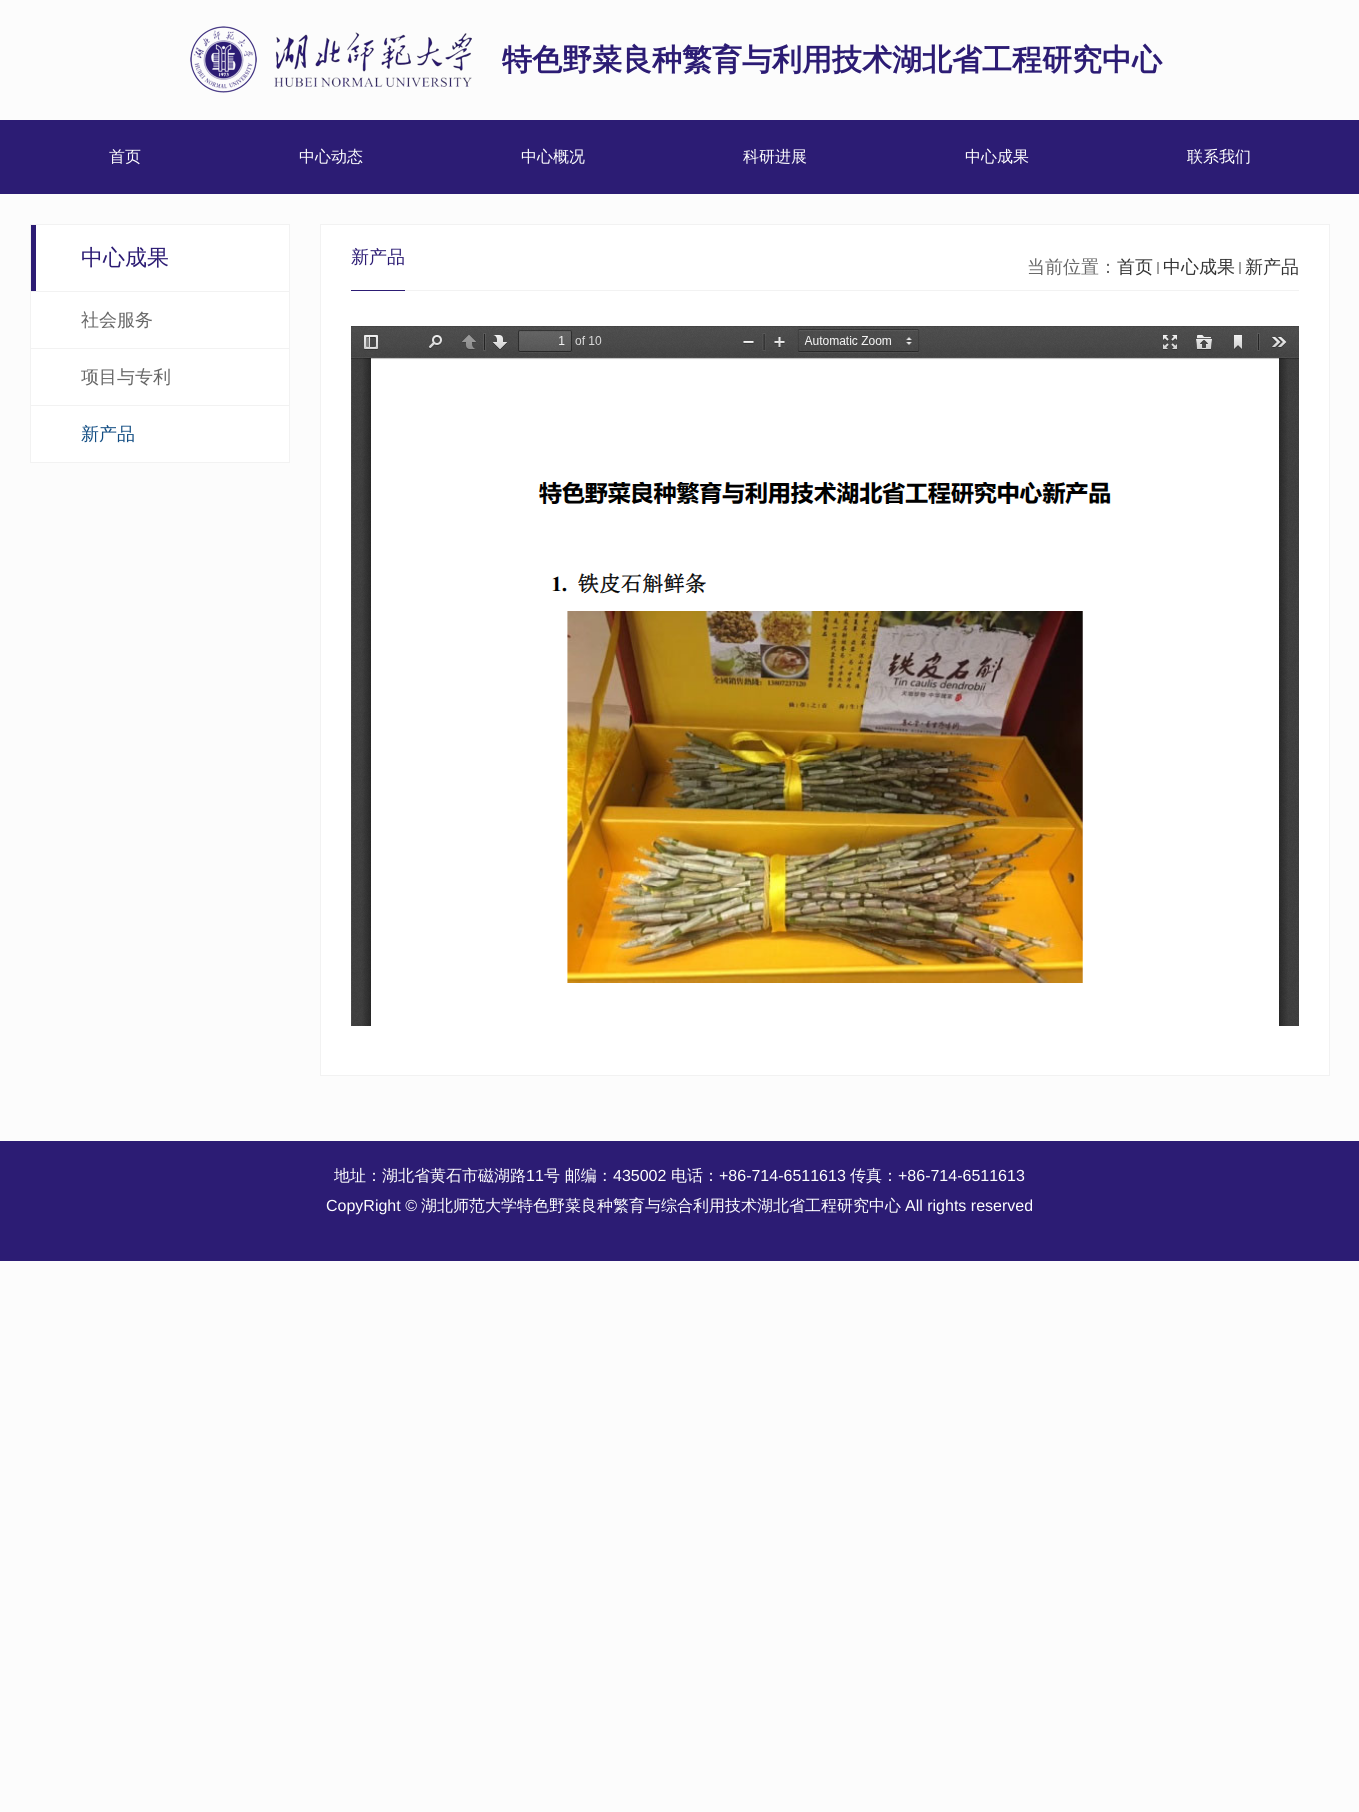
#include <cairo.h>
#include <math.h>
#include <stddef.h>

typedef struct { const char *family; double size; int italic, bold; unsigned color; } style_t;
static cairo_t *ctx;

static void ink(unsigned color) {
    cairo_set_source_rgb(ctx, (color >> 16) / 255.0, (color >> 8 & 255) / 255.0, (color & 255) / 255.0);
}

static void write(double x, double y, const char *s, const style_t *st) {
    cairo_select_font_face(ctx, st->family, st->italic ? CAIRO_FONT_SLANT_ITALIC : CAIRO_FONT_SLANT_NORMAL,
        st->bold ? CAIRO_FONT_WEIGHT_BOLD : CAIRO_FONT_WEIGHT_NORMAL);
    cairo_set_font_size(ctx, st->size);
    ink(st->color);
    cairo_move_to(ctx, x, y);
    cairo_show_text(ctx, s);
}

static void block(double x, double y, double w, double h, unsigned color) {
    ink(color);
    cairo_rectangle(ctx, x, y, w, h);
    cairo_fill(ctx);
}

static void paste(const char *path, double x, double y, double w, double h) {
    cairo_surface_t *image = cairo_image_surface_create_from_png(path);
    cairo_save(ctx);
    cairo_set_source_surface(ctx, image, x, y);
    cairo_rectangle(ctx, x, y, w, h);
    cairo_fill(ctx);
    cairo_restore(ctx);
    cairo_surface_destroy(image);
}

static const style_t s1 = {"WenQuanYi Zen Hei", 30, 0, 1, 0x2c1c74};
static const style_t s2 = {"WenQuanYi Zen Hei Medium", 16, 0, 0, 0xffffff};
static const style_t s3 = {"WenQuanYi Zen Hei Medium", 22, 0, 0, 0x2c1c74};
static const style_t s4 = {"WenQuanYi Zen Hei Medium", 18, 0, 0, 0x666666};
static const style_t s5 = {"WenQuanYi Zen Hei Medium", 18, 0, 0, 0x124d83};
static const style_t s6 = {"WenQuanYi Zen Hei Medium", 18, 0, 0, 0x2c1c74};
static const style_t s7 = {"WenQuanYi Zen Hei Medium", 18, 0, 0, 0x333333};
static const style_t s8 = {"Liberation Sans", 16, 0, 0, 0xffffff};

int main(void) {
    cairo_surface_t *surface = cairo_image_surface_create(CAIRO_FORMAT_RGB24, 1359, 1812);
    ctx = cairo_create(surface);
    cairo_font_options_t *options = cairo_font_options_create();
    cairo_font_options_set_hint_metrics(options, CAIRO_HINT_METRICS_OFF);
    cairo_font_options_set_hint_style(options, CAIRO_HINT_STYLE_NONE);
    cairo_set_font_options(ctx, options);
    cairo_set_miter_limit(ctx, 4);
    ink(0xfcfcfc);
    cairo_paint(ctx);
    paste("pic1.png", 190, 26, 282, 67);
    write(502, 70, "特色野菜良种繁育与利用技术湖北省工程研究中心", &s1);
    block(0, 120, 1359, 74, 0x2c1c74);
    write(109, 162, "首页", &s2);
    write(299, 162, "中心动态", &s2);
    write(521, 162, "中心概况", &s2);
    write(743, 162, "科研进展", &s2);
    write(965, 162, "中心成果", &s2);
    write(1187, 162, "联系我们", &s2);
    cairo_rectangle(ctx, 30.5, 224.5, 259, 238);
    cairo_fill_preserve(ctx);
    ink(0xf2f2f2);
    cairo_set_line_width(ctx, 1);
    cairo_stroke(ctx);
    block(31, 225, 5, 66, 0x2c1c74);
    write(81, 265, "中心成果", &s3);
    block(31, 291, 258, 1, 0xf2f2f2);
    write(81, 326, "社会服务", &s4);
    block(31, 348, 258, 1, 0xf2f2f2);
    write(81, 383, "项目与专利", &s4);
    block(31, 405, 258, 1, 0xf2f2f2);
    write(81, 440, "新产品", &s5);
    ink(0xffffff);
    cairo_rectangle(ctx, 320.5, 224.5, 1009, 851);
    cairo_fill_preserve(ctx);
    ink(0xf2f2f2);
    cairo_stroke(ctx);
    block(405, 290, 894, 1, 0xf2f2f2);
    block(351, 290, 54, 1, 0x2c1c74);
    write(351, 263, "新产品", &s6);
    write(1027, 273, "当前位置：", &s4);
    write(1117, 273, "首页", &s7);
    block(1157, 262, 2, 12, 0xa2a2a2);
    write(1163, 273, "中心成果", &s7);
    block(1239, 262, 2, 12, 0xa2a2a2);
    write(1245, 273, "新产品", &s7);
    paste("pic2.png", 351, 326, 948, 700);
    block(0, 1141, 1359, 120, 0x2c1c74);
    write(334, 1181, "地址：湖北省黄石市磁湖路", &s2);
    write(526, 1181, "11", &s8);
    write(544, 1181, "号 邮编：", &s2);
    write(613, 1181, "435002", &s8);
    write(671, 1181, "电话：", &s2);
    write(719, 1181, "+86-714-6511613", &s8);
    write(850, 1181, "传真：", &s2);
    write(898, 1181, "+86-714-6511613", &s8);
    write(326, 1211, "CopyRight ©", &s8);
    write(421, 1211, "湖北师范大学特色野菜良种繁育与综合利用技术湖北省工程研究中心", &s2);
    write(905, 1211, "All rights reserved", &s8);
    cairo_surface_write_to_png(surface, "screenshot.png");
    cairo_font_options_destroy(options);
    cairo_destroy(ctx);
    cairo_surface_destroy(surface);
    return 0;
}
